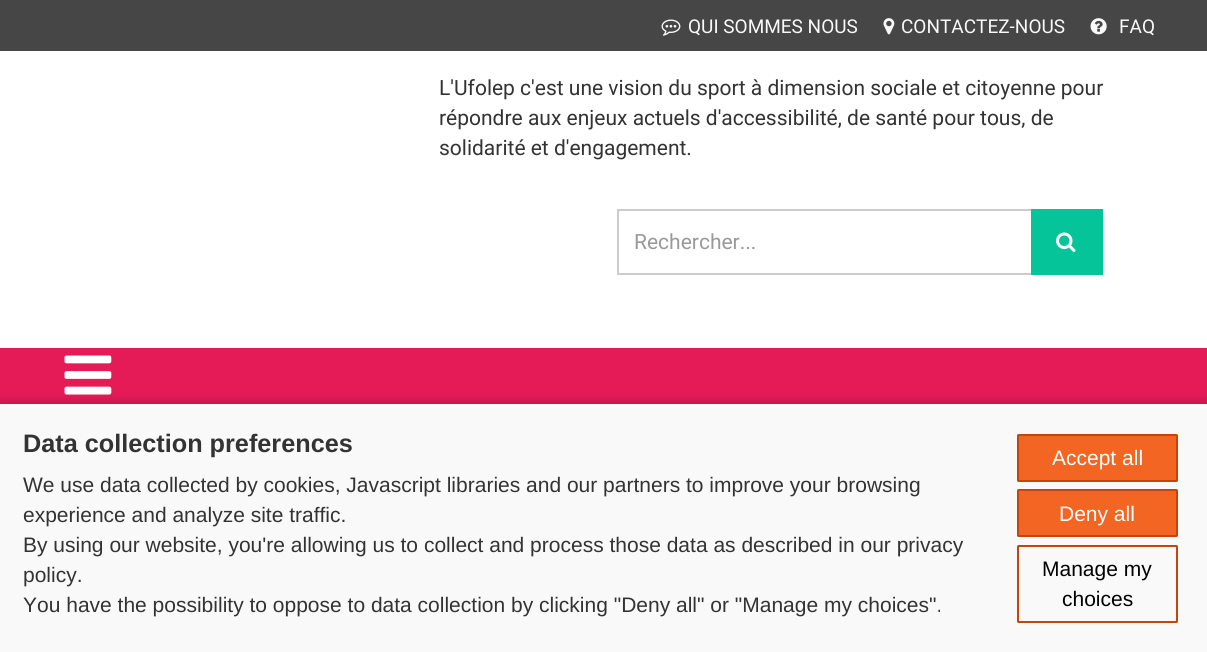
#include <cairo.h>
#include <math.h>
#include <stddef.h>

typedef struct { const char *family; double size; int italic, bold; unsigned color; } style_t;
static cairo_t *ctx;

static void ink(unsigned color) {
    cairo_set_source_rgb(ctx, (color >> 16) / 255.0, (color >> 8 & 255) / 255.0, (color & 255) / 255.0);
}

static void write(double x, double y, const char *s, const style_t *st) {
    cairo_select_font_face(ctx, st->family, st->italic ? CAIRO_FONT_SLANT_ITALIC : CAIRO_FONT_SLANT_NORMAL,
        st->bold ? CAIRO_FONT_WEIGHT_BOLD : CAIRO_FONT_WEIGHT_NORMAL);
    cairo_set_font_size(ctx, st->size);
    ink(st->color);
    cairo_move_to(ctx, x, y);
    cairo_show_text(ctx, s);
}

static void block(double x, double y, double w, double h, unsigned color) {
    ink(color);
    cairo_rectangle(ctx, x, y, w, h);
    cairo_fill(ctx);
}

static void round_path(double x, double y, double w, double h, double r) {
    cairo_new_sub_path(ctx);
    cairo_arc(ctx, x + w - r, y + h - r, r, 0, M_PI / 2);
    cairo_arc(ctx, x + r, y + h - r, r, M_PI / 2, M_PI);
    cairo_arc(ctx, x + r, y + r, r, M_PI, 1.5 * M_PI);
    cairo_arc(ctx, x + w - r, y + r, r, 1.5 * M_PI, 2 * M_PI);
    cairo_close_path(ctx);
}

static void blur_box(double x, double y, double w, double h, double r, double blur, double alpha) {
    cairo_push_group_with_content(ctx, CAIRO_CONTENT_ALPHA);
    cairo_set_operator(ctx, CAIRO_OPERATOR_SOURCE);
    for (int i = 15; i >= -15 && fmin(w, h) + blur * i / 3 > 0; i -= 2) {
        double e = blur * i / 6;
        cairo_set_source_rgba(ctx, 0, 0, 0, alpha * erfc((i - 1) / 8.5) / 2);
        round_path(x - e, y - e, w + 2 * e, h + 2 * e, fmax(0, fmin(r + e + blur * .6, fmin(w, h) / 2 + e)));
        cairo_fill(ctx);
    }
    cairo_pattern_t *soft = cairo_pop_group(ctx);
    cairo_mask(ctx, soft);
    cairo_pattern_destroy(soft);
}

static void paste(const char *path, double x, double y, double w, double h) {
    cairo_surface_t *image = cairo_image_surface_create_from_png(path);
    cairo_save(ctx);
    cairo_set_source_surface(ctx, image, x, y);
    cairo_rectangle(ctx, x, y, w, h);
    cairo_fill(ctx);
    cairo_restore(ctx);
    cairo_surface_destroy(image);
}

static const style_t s1 = {"Roboto", 19, 0, 0, 0xf9f9f9};
static const style_t s2 = {"Roboto", 21, 0, 0, 0x333333};
static const style_t s3 = {"Roboto", 21, 0, 0, 0x999999};
static const style_t s4 = {"Liberation Sans", 25.25, 0, 1, 0x333333};
static const style_t s5 = {"Liberation Sans", 21, 0, 0, 0x333333};
static const style_t s6 = {"Liberation Sans", 21, 0, 0, 0xffffff};
static const style_t s7 = {"Liberation Sans", 21, 0, 0, 0x000000};

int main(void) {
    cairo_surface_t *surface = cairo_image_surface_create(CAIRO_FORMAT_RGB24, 1207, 652);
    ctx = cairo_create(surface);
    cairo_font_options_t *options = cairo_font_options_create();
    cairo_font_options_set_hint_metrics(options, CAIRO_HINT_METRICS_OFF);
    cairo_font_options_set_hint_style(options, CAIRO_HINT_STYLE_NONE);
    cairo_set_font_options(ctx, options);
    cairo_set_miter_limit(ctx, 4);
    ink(0xffffff);
    cairo_paint(ctx);
    block(0, 0, 1207, 51, 0x464646);
    paste("pic1.png", 661, 19, 20, 17);
    write(688, 33, "QUI SOMMES NOUS", &s1);
    paste("pic2.png", 883, 18, 12, 17);
    write(901, 33, "CONTACTEZ-NOUS", &s1);
    paste("pic3.png", 1090, 18, 17, 17);
    write(1119, 33, "FAQ", &s1);
    write(439, 95, "L'Ufolep c'est une vision du sport à dimension sociale et citoyenne pour", &s2);
    write(439, 125, "répondre aux enjeux actuels d'accessibilité, de santé pour tous, de", &s2);
    write(439, 155, "solidarité et d'engagement.", &s2);
    cairo_rectangle(ctx, 618, 210, 484, 64);
    ink(0xcccccc);
    cairo_stroke(ctx);
    write(634, 249, "Rechercher...", &s3);
    block(1031, 209, 72, 66, 0x06c49a);
    paste("pic4.png", 1056, 232, 20, 20);
    block(0, 348, 1207, 56, 0xe51b58);
    paste("pic5.png", 64, 355, 48, 40);
    ink(0x000000);
    blur_box(-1, 399, 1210, 252, 0, 4, 0.14);
    block(0, 404, 1207, 248, 0xf9f9f9);
    write(23, 452, "Data collection preferences", &s4);
    write(23, 492, "We use data collected by cookies, Javascript libraries and our partners to improve your browsing", &s5);
    write(23, 522, "experience and analyze site traffic.", &s5);
    write(23, 552, "By using our website, you're allowing us to collect and process those data as described in our privacy", &s5);
    write(23, 582, "policy.", &s5);
    write(23, 612, "You have the possibility to oppose to data collection by clicking \"Deny all\" or \"Manage my choices\".", &s5);
    ink(0xf26522);
    round_path(1018, 435, 159, 46, 0.5);
    cairo_fill_preserve(ctx);
    ink(0xc3460b);
    cairo_stroke(ctx);
    write(1052, 465, "Accept all", &s6);
    ink(0xf26522);
    round_path(1018, 490, 159, 46, 0.5);
    cairo_fill_preserve(ctx);
    ink(0xc3460b);
    cairo_stroke(ctx);
    write(1059, 521, "Deny all", &s6);
    round_path(1018, 546, 159, 76, 0.5);
    ink(0xc3460b);
    cairo_stroke(ctx);
    write(1042, 576, "Manage my", &s7);
    write(1062, 606, "choices", &s7);
    cairo_surface_write_to_png(surface, "screenshot.png");
    cairo_font_options_destroy(options);
    cairo_destroy(ctx);
    cairo_surface_destroy(surface);
    return 0;
}
